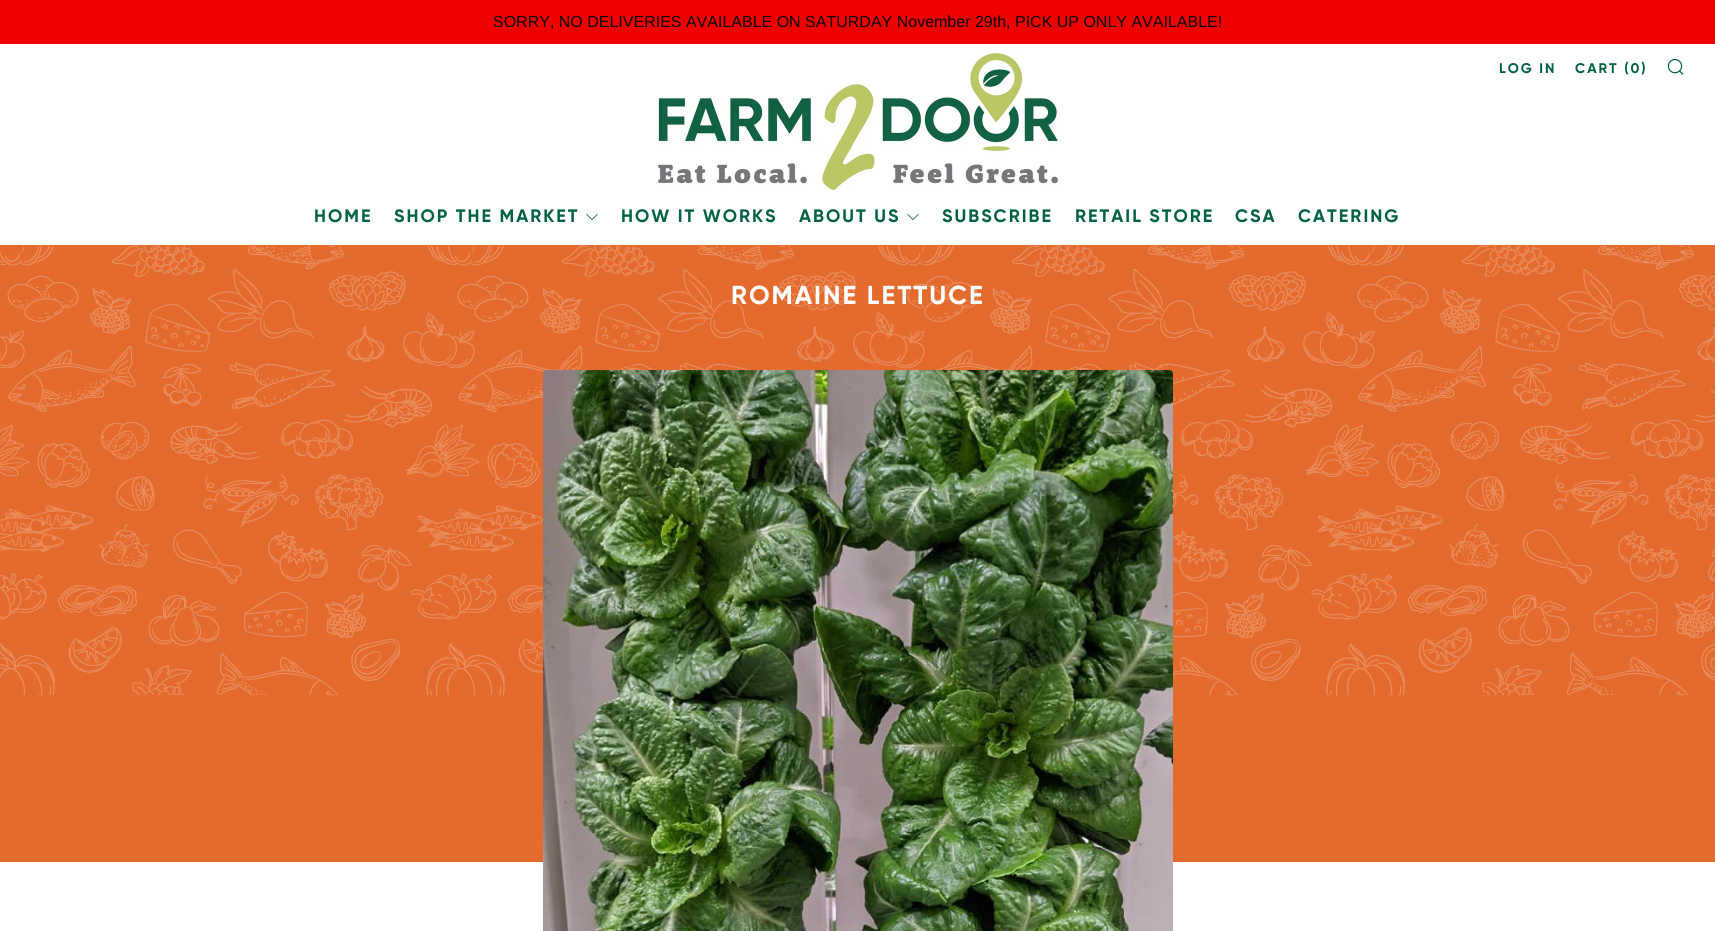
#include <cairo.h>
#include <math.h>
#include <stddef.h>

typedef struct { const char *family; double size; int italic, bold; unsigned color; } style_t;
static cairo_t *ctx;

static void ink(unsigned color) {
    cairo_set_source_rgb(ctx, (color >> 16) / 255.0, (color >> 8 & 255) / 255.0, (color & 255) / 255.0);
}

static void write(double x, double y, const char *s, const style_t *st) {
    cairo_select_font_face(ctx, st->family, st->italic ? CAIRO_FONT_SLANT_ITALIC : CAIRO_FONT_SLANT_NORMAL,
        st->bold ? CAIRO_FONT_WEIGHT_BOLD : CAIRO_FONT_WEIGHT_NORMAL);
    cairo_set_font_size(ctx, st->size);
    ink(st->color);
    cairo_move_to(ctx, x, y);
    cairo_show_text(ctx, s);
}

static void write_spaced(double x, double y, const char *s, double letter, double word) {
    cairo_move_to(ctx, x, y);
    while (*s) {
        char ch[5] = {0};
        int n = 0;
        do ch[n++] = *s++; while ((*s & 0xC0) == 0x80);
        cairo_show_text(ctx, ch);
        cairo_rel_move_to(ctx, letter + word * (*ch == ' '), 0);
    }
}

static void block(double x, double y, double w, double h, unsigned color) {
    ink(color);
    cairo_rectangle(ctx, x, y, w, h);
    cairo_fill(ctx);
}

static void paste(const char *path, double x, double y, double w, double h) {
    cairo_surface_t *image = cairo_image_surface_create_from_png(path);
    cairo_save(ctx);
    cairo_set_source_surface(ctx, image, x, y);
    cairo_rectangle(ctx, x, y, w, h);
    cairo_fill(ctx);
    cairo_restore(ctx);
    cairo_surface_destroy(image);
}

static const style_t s1 = {"Liberation Sans", 16, 0, 0, 0x070707};

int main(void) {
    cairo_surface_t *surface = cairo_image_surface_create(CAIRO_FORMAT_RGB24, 1715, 931);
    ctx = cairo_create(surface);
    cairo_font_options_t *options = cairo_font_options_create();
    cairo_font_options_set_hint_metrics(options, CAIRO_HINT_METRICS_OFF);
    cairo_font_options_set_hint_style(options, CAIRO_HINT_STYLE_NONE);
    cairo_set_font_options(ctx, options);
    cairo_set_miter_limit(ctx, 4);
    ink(0xffffff);
    cairo_paint(ctx);
    block(0, 0, 1715, 44, 0xef0101);
    write(493, 27, "SORRY, NO DELIVERIES AVAILABLE ON SATURDAY November 29th, PICK UP ONLY AVAILABLE!", &s1);
    paste("pic1.png", 658, 53, 400, 137);
    cairo_select_font_face(ctx, "Gilroy", CAIRO_FONT_SLANT_NORMAL, CAIRO_FONT_WEIGHT_BOLD);
    cairo_set_font_size(ctx, 14);
    ink(0x006241);
    write_spaced(1499, 73, "LOG IN", 2, 0);
    write_spaced(1575, 73, "CART (0)", 2, 0);
    paste("pic2.png", 1667, 58, 17, 17);
    cairo_set_font_size(ctx, 18);
    write_spaced(314, 222, "HOME", 2, 0);
    write_spaced(394, 222, "SHOP THE MARKET", 2, 0);
    paste("pic3.png", 586, 213, 12, 7);
    write_spaced(621, 222, "HOW IT WORKS", 2, 0);
    write_spaced(799, 222, "ABOUT US", 2, 0);
    paste("pic3.png", 907, 213, 12, 7);
    write_spaced(942, 222, "SUBSCRIBE", 2, 0);
    write_spaced(1075, 222, "RETAIL STORE", 2, 0);
    write_spaced(1235, 222, "CSA", 2, 0);
    write_spaced(1298, 222, "CATERING", 2, 0);
    block(0, 245, 1715, 617, 0xe46b2d);
    paste("pic4.png", 0, 245, 1715, 451);
    cairo_set_font_size(ctx, 26);
    ink(0xffffff);
    write_spaced(731, 304, "ROMAINE LETTUCE", 2, 0);
    paste("pic5.png", 543, 370, 630, 561);
    cairo_surface_write_to_png(surface, "screenshot.png");
    cairo_font_options_destroy(options);
    cairo_destroy(ctx);
    cairo_surface_destroy(surface);
    return 0;
}
